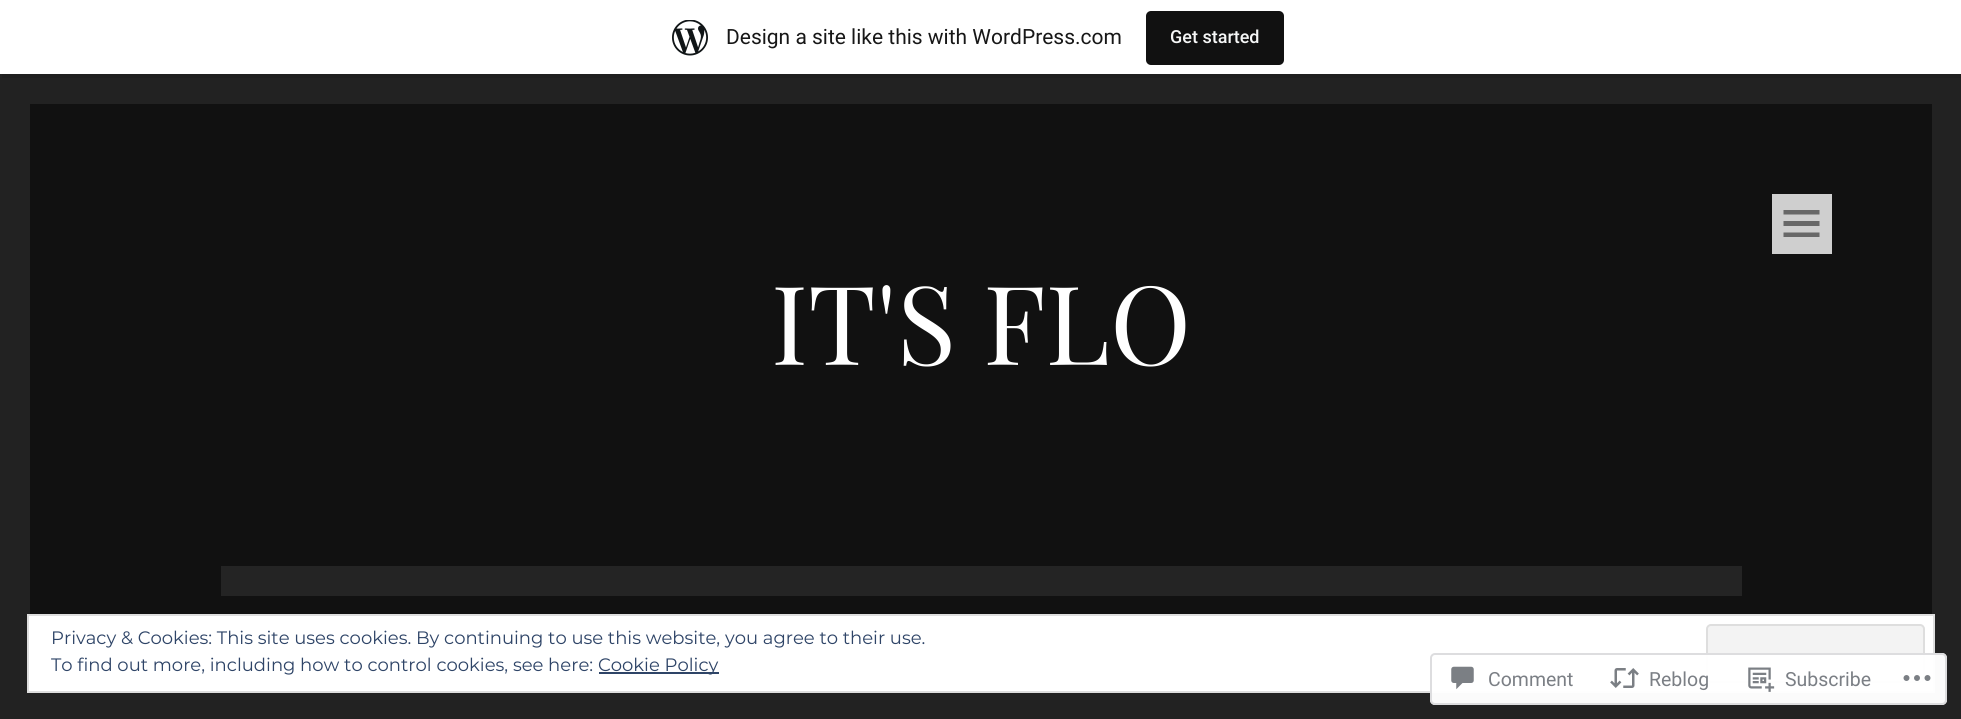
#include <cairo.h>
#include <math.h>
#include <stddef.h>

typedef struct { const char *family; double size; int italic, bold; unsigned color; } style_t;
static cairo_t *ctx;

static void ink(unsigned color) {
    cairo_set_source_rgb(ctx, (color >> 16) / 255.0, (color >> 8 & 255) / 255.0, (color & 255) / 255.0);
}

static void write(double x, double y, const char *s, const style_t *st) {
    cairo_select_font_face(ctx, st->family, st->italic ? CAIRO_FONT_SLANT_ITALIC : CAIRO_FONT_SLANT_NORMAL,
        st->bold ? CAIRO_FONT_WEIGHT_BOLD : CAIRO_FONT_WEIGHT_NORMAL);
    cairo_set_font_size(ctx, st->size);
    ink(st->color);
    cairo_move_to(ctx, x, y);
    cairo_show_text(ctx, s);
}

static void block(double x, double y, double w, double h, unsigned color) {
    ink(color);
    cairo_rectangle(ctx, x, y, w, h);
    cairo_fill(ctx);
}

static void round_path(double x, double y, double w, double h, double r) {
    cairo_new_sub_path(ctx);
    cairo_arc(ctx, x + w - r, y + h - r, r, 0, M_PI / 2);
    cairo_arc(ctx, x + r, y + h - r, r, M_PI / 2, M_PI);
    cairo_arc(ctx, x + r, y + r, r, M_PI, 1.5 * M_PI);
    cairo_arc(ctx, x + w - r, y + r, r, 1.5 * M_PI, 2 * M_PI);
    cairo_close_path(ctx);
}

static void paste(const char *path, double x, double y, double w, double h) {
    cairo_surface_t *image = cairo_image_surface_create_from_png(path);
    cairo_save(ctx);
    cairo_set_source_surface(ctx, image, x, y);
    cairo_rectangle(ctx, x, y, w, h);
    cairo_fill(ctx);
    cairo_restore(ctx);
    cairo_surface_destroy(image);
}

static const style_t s1 = {"Roboto", 21, 0, 0, 0x171717};
static const style_t s2 = {"Roboto Medium", 18, 0, 0, 0xf6f7f7};
static const style_t s3 = {"Playfair Display", 109.5, 0, 0, 0xffffff};
static const style_t s4 = {"Montserrat", 18, 0, 0, 0x2e4467};
static const style_t s5 = {"Roboto", 19.5, 0, 0, 0x7b7f85};

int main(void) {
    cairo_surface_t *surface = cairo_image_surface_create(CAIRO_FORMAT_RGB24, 1961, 719);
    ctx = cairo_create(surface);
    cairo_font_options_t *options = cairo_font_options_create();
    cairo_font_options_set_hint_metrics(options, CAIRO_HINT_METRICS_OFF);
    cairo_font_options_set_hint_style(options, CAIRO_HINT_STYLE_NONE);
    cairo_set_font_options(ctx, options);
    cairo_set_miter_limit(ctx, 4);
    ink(0x111111);
    cairo_paint(ctx);
    block(0, 74, 1961, 30, 0x222222);
    ink(0x1f1f1f);
    cairo_new_path(ctx);
    cairo_move_to(ctx, 2, 74);
    cairo_line_to(ctx, 2, 78);
    cairo_line_to(ctx, 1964, 78);
    cairo_line_to(ctx, 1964, 5);
    cairo_line_to(ctx, 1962, 5);
    cairo_line_to(ctx, 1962, 74);
    cairo_close_path(ctx);
    cairo_fill(ctx);
    block(0, 0, 1961, 74, 0xffffff);
    paste("pic1.png", 672, 20, 36, 36);
    write(726, 44, "Design a site like this with WordPress.com", &s1);
    ink(0x111111);
    round_path(1146, 11, 138, 54, 5);
    cairo_fill(ctx);
    write(1170, 43, "Get started", &s2);
    block(1932, 104, 29, 586, 0x222222);
    block(0, 104, 30, 586, 0x222222);
    block(221, 566, 1521, 30, 0x242424);
    block(1772, 194, 60, 60, 0xcfcfcf);
    ink(0x686868);
    cairo_new_path(ctx);
    cairo_move_to(ctx, 1783.5, 237);
    cairo_line_to(ctx, 1783.5, 232.5);
    cairo_line_to(ctx, 1819.5, 232.5);
    cairo_line_to(ctx, 1819.5, 237);
    cairo_close_path(ctx);
    cairo_move_to(ctx, 1783.5, 210);
    cairo_line_to(ctx, 1819.5, 210);
    cairo_line_to(ctx, 1819.5, 214.5);
    cairo_line_to(ctx, 1783.5, 214.5);
    cairo_close_path(ctx);
    cairo_move_to(ctx, 1783.5, 226);
    cairo_line_to(ctx, 1783.5, 221);
    cairo_line_to(ctx, 1819.5, 221);
    cairo_line_to(ctx, 1819.5, 226);
    cairo_close_path(ctx);
    cairo_fill(ctx);
    write(771, 365, "IT'S FLO", &s3);
    block(0, 690, 1961, 29, 0x222222);
    ink(0xffffff);
    cairo_rectangle(ctx, 28, 615, 1906, 77);
    cairo_fill_preserve(ctx);
    ink(0xdedede);
    cairo_stroke(ctx);
    write(51, 644, "Privacy & Cookies: This site uses cookies. By continuing to use this website, you agree to their use.", &s4);
    ink(0xf3f3f3);
    round_path(1707, 625, 217, 57, 4);
    cairo_fill_preserve(ctx);
    ink(0xdedede);
    cairo_stroke(ctx);
    write(51, 671, "To find out more, including how to control cookies, see here:", &s4);
    block(599, 672, 120, 2, 0x2e4467);
    write(598, 671, "Cookie Policy", &s4);
    cairo_set_source_rgba(ctx, 1, 1, 1, 0.98);
    round_path(1430, 653, 517, 52, 5);
    cairo_fill(ctx);
    round_path(1431, 654, 515, 50, 4);
    cairo_set_source_rgba(ctx, 0.863, 0.863, 0.871, 0.98);
    cairo_stroke(ctx);
    paste("pic2.png", 1451, 666, 23, 24);
    write(1488, 686, "Comment", &s5);
    paste("pic3.png", 1610, 668, 29, 20);
    write(1649, 686, "Reblog", &s5);
    paste("pic4.png", 1748, 667, 27, 25);
    write(1785, 686, "Subscribe", &s5);
    paste("pic5.png", 1903, 675, 28, 6);
    cairo_surface_write_to_png(surface, "screenshot.png");
    cairo_font_options_destroy(options);
    cairo_destroy(ctx);
    cairo_surface_destroy(surface);
    return 0;
}
